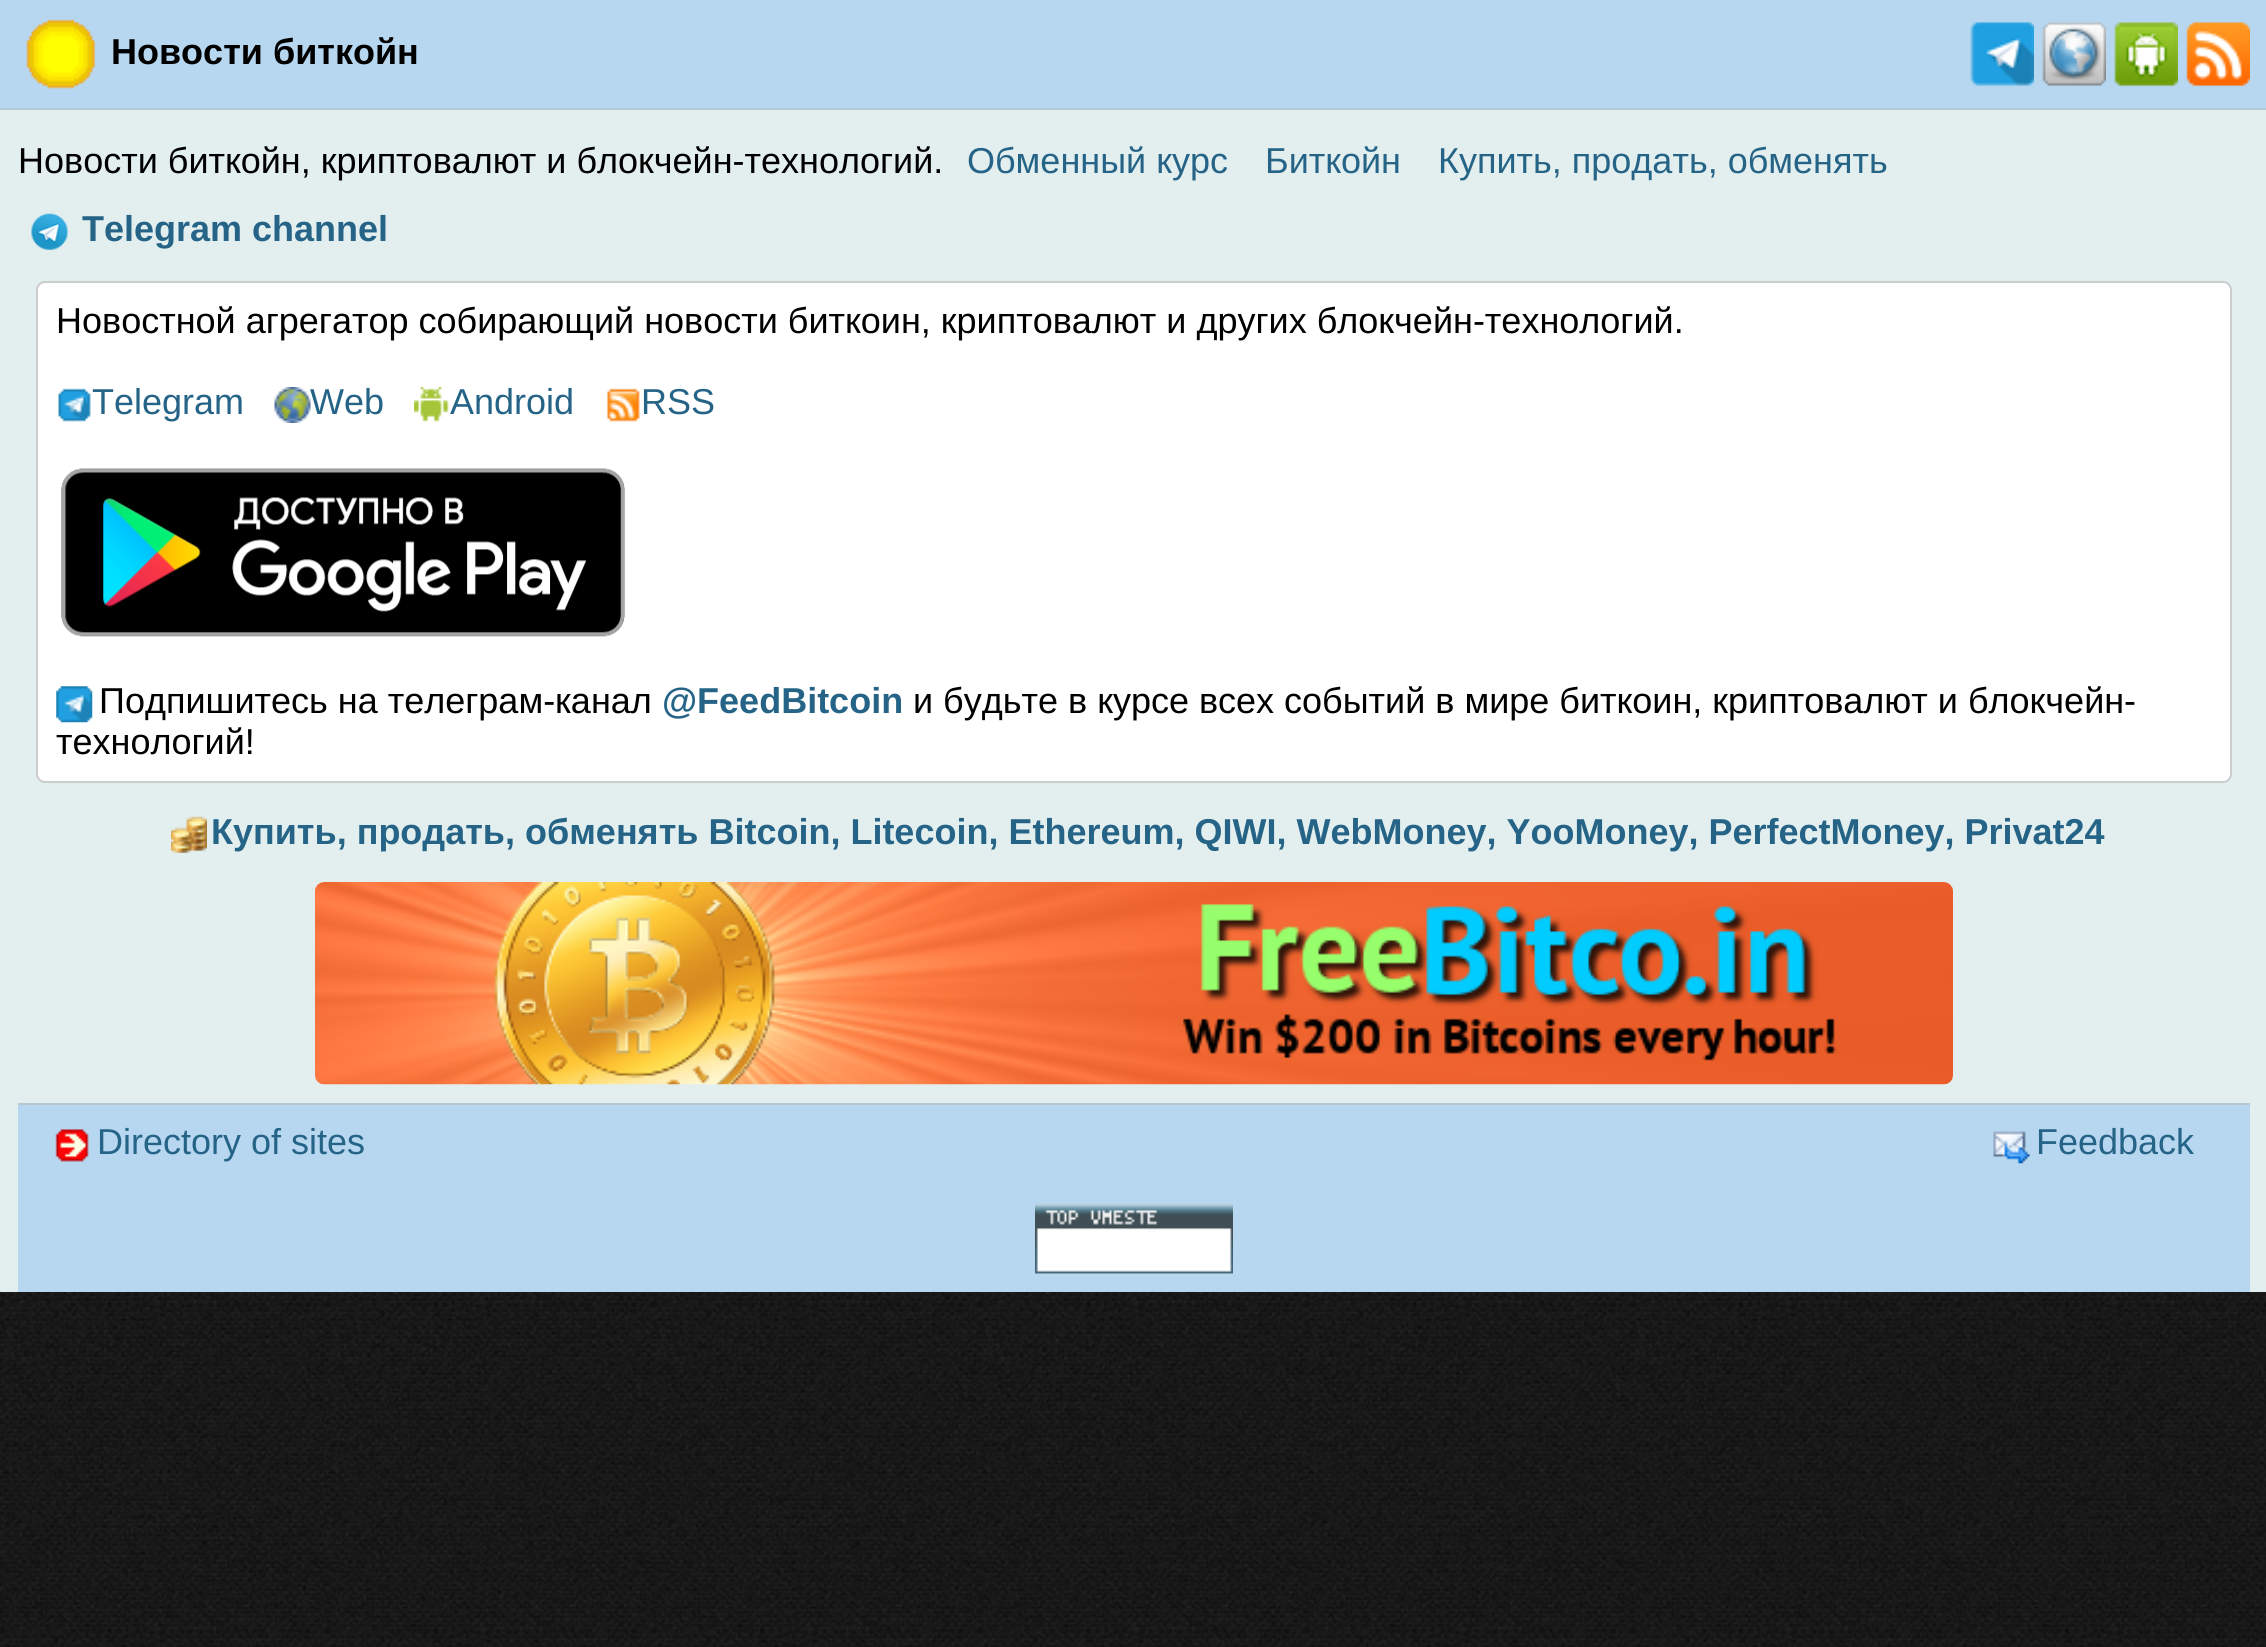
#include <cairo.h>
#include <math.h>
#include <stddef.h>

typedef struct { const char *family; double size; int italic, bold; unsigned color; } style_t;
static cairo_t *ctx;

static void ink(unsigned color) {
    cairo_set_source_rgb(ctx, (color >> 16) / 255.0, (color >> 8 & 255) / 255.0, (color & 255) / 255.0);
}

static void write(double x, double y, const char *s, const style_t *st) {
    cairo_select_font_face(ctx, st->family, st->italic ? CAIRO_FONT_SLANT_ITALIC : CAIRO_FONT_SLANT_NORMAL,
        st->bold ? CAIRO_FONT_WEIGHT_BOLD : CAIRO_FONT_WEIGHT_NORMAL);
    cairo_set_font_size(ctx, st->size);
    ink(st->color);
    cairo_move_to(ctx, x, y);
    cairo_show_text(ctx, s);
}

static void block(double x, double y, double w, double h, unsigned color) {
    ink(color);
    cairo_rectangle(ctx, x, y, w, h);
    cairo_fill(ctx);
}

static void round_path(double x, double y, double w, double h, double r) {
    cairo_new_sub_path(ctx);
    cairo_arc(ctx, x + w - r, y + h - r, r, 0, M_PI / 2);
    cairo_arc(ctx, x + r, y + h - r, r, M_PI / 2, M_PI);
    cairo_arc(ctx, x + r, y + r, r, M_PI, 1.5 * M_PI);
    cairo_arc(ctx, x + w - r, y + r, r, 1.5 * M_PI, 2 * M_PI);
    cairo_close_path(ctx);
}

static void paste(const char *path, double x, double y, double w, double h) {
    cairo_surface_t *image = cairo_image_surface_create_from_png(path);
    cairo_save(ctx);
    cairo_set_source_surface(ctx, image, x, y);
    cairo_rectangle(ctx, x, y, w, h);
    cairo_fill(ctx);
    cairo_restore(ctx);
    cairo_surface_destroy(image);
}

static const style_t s1 = {"Liberation Sans", 36, 0, 1, 0x000000};
static const style_t s2 = {"Liberation Sans", 36, 0, 0, 0x000000};
static const style_t s3 = {"Liberation Sans", 36, 0, 0, 0x266487};
static const style_t s4 = {"Liberation Sans", 36, 0, 1, 0x266487};

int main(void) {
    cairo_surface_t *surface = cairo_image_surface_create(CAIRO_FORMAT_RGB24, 2266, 1647);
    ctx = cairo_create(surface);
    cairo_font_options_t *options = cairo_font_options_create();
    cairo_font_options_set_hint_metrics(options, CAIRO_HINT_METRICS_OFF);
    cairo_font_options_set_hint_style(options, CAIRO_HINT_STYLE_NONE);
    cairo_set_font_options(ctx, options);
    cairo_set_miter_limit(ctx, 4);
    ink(0xffffff);
    cairo_paint(ctx);
    paste("pic1.png", 0, 1292, 2266, 355);
    block(0, 110, 2266, 1182, 0xe3efef);
    block(0, 0, 2266, 108, 0xb7d7f0);
    block(0, 108, 2266, 2, 0xb4c8d2);
    paste("pic2.png", 26, 19, 70, 70);
    write(111, 64, "Новости биткойн", &s1);
    paste("pic3.png", 1970, 22, 64, 65);
    paste("pic4.png", 2042, 22, 64, 65);
    paste("pic5.png", 2114, 22, 64, 65);
    paste("pic6.png", 2186, 22, 64, 65);
    write(18, 173, "Новости биткойн, криптовалют и блокчейн-технологий.", &s2);
    write(967, 173, "Обменный курс", &s3);
    write(1265, 173, "Биткойн", &s3);
    write(1438, 173, "Купить, продать, обменять", &s3);
    paste("pic7.png", 31, 213, 37, 37);
    write(82, 241, "Telegram channel", &s4);
    ink(0xffffff);
    round_path(37, 282, 2194, 500, 8);
    cairo_fill_preserve(ctx);
    ink(0xcccccc);
    cairo_stroke(ctx);
    write(56, 333, "Новостной агрегатор собирающий новости биткоин, криптовалют и других блокчейн-технологий.", &s2);
    paste("pic8.png", 58, 388, 33, 34);
    write(92, 414, "Telegram", &s3);
    paste("pic9.png", 274, 387, 37, 36);
    write(310, 414, "Web", &s3);
    paste("pic10.png", 414, 387, 35, 35);
    write(450, 414, "Android", &s3);
    paste("pic11.png", 607, 388, 33, 34);
    write(641, 414, "RSS", &s3);
    paste("pic12.png", 61, 468, 565, 169);
    paste("pic13.png", 56, 686, 37, 37);
    write(99, 713, "Подпишитесь на телеграм-канал", &s2);
    write(662, 713, "@FeedBitcoin", &s4);
    write(913, 713, "и будьте в курсе всех событий в мире биткоин, криптовалют и блокчейн-", &s2);
    write(56, 754, "технологий!", &s2);
    paste("pic14.png", 171, 816, 36, 37);
    write(211, 844, "Купить, продать, обменять Bitcoin, Litecoin, Ethereum, QIWI, WebMoney, YooMoney, PerfectMoney, Privat24", &s4);
    paste("pic15.png", 315, 882, 1638, 203);
    block(18, 1105, 2232, 187, 0xb7d7f0);
    block(18, 1103, 2232, 2, 0xb4c8d2);
    paste("pic16.png", 55, 1129, 34, 33);
    write(97, 1154, "Directory of sites", &s3);
    paste("pic17.png", 1993, 1131, 37, 33);
    write(2036, 1154, "Feedback", &s3);
    paste("pic18.png", 1035, 1203, 198, 71);
    cairo_surface_write_to_png(surface, "screenshot.png");
    cairo_font_options_destroy(options);
    cairo_destroy(ctx);
    cairo_surface_destroy(surface);
    return 0;
}
